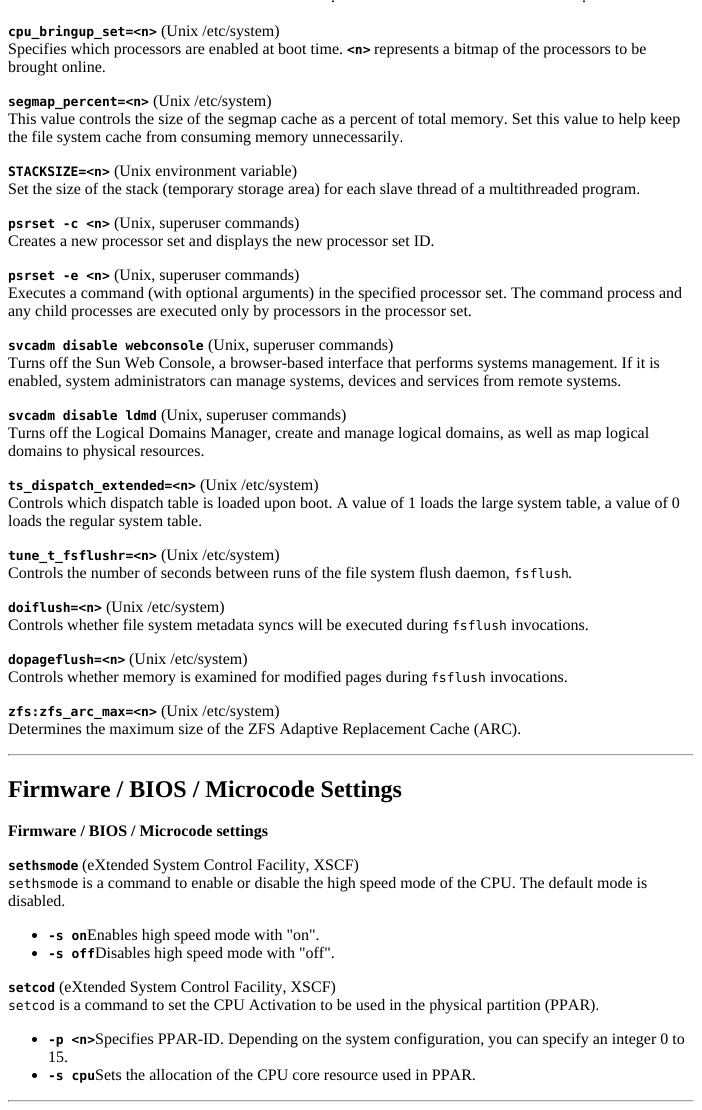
#include <cairo.h>
#include <math.h>
#include <stddef.h>

typedef struct { const char *family; double size; int italic, bold; unsigned color; } style_t;
static cairo_t *ctx;

static void ink(unsigned color) {
    cairo_set_source_rgb(ctx, (color >> 16) / 255.0, (color >> 8 & 255) / 255.0, (color & 255) / 255.0);
}

static void write(double x, double y, const char *s, const style_t *st) {
    cairo_select_font_face(ctx, st->family, st->italic ? CAIRO_FONT_SLANT_ITALIC : CAIRO_FONT_SLANT_NORMAL,
        st->bold ? CAIRO_FONT_WEIGHT_BOLD : CAIRO_FONT_WEIGHT_NORMAL);
    cairo_set_font_size(ctx, st->size);
    ink(st->color);
    cairo_move_to(ctx, x, y);
    cairo_show_text(ctx, s);
}

static void block(double x, double y, double w, double h, unsigned color) {
    ink(color);
    cairo_rectangle(ctx, x, y, w, h);
    cairo_fill(ctx);
}

static const style_t s1 = {"Liberation Serif", 16, 0, 0, 0x000000};
static const style_t s2 = {"DejaVu Sans Mono", 13, 0, 1, 0x000000};
static const style_t s3 = {"DejaVu Sans Mono", 13, 0, 0, 0x000000};
static const style_t s4 = {"Liberation Serif", 24, 0, 1, 0x000000};
static const style_t s5 = {"Liberation Serif", 16, 0, 1, 0x000000};

int main(void) {
    cairo_surface_t *surface = cairo_image_surface_create(CAIRO_FORMAT_RGB24, 702, 1110);
    ctx = cairo_create(surface);
    cairo_font_options_t *options = cairo_font_options_create();
    cairo_font_options_set_hint_metrics(options, CAIRO_HINT_METRICS_OFF);
    cairo_font_options_set_hint_style(options, CAIRO_HINT_STYLE_NONE);
    cairo_set_font_options(ctx, options);
    cairo_set_miter_limit(ctx, 4);
    ink(0xffffff);
    cairo_paint(ctx);
    write(331, 2, ".", &s1);
    write(582, 2, ".", &s1);
    write(8, 36, "cpu_bringup_set=<n>", &s2);
    write(161, 36, "(Unix /etc/system)", &s1);
    write(8, 54, "Specifies which processors are enabled at boot time.", &s1);
    write(347, 54, "<n>", &s2);
    write(374, 54, "represents a bitmap of the processors to be", &s1);
    write(8, 72, "brought online.", &s1);
    write(8, 106, "segmap_percent=<n>", &s2);
    write(153, 106, "(Unix /etc/system)", &s1);
    write(8, 124, "This value controls the size of the segmap cache as a percent of total memory. Set this value to help keep", &s1);
    write(8, 142, "the file system cache from consuming memory unnecessarily.", &s1);
    write(8, 176, "STACKSIZE=<n>", &s2);
    write(114, 176, "(Unix environment variable)", &s1);
    write(8, 194, "Set the size of the stack (temporary storage area) for each slave thread of a multithreaded program.", &s1);
    write(8, 228, "psrset -c <n>", &s2);
    write(114, 228, "(Unix, superuser commands)", &s1);
    write(8, 246, "Creates a new processor set and displays the new processor set ID.", &s1);
    write(8, 280, "psrset -e <n>", &s2);
    write(114, 280, "(Unix, superuser commands)", &s1);
    write(8, 298, "Executes a command (with optional arguments) in the specified processor set. The command process and", &s1);
    write(8, 316, "any child processes are executed only by processors in the processor set.", &s1);
    write(8, 350, "svcadm disable webconsole", &s2);
    write(208, 350, "(Unix, superuser commands)", &s1);
    write(8, 368, "Turns off the Sun Web Console, a browser-based interface that performs systems management. If it is", &s1);
    write(8, 386, "enabled, system administrators can manage systems, devices and services from remote systems.", &s1);
    write(8, 420, "svcadm disable ldmd", &s2);
    write(161, 420, "(Unix, superuser commands)", &s1);
    write(8, 438, "Turns off the Logical Domains Manager, create and manage logical domains, as well as map logical", &s1);
    write(8, 456, "domains to physical resources.", &s1);
    write(8, 490, "ts_dispatch_extended=<n>", &s2);
    write(200, 490, "(Unix /etc/system)", &s1);
    write(8, 508, "Controls which dispatch table is loaded upon boot. A value of 1 loads the large system table, a value of 0", &s1);
    write(8, 526, "loads the regular system table.", &s1);
    write(8, 560, "tune_t_fsflushr=<n>", &s2);
    write(161, 560, "(Unix /etc/system)", &s1);
    write(8, 578, "Controls the number of seconds between runs of the file system flush daemon,", &s1);
    write(514, 578, "fsflush", &s3);
    write(568, 578, ".", &s1);
    write(8, 612, "doiflush=<n>", &s2);
    write(106, 612, "(Unix /etc/system)", &s1);
    write(8, 630, "Controls whether file system metadata syncs will be executed during", &s1);
    write(452, 630, "fsflush", &s3);
    write(511, 630, "invocations.", &s1);
    write(8, 664, "dopageflush=<n>", &s2);
    write(129, 664, "(Unix /etc/system)", &s1);
    write(8, 682, "Controls whether memory is examined for modified pages during", &s1);
    write(431, 682, "fsflush", &s3);
    write(490, 682, "invocations.", &s1);
    write(8, 716, "zfs:zfs_arc_max=<n>", &s2);
    write(161, 716, "(Unix /etc/system)", &s1);
    write(8, 734, "Determines the maximum size of the ZFS Adaptive Replacement Cache (ARC).", &s1);
    block(8, 754, 686, 1, 0x9f9f9f);
    block(693, 754, 1, 2, 0xeeeeee);
    block(8, 755, 686, 1, 0xeeeeee);
    block(8, 754, 1, 2, 0x9f9f9f);
    write(8, 797, "Firmware / BIOS / Microcode Settings", &s4);
    write(8, 836, "Firmware / BIOS / Microcode settings", &s5);
    write(8, 870, "sethsmode", &s2);
    write(82, 870, "(eXtended System Control Facility, XSCF)", &s1);
    write(8, 888, "sethsmode", &s3);
    write(82, 888, "is a command to enable or disable the high speed mode of the CPU. The default mode is", &s1);
    write(8, 906, "disabled.", &s1);
    cairo_new_path(ctx);
    cairo_arc(ctx, 34.5, 935.5, 2.5, 0, 2 * M_PI);
    cairo_fill(ctx);
    write(48, 940, "-s on", &s2);
    write(87, 940, "Enables high speed mode with \"on\".", &s1);
    cairo_new_path(ctx);
    cairo_arc(ctx, 34.5, 953.5, 2.5, 0, 2 * M_PI);
    cairo_fill(ctx);
    write(48, 958, "-s off", &s2);
    write(95, 958, "Disables high speed mode with \"off\".", &s1);
    write(8, 992, "setcod", &s2);
    write(59, 992, "(eXtended System Control Facility, XSCF)", &s1);
    write(8, 1010, "setcod", &s3);
    write(59, 1010, "is a command to set the CPU Activation to be used in the physical partition (PPAR).", &s1);
    cairo_new_path(ctx);
    cairo_arc(ctx, 34.5, 1039.5, 2.5, 0, 2 * M_PI);
    cairo_fill(ctx);
    write(48, 1044, "-p <n>", &s2);
    write(95, 1044, "Specifies PPAR-ID. Depending on the system configuration, you can specify an integer 0 to", &s1);
    write(48, 1062, "15.", &s1);
    cairo_new_path(ctx);
    cairo_arc(ctx, 34.5, 1075.5, 2.5, 0, 2 * M_PI);
    cairo_fill(ctx);
    write(48, 1080, "-s cpu", &s2);
    write(95, 1080, "Sets the allocation of the CPU core resource used in PPAR.", &s1);
    block(8, 1100, 686, 1, 0x9f9f9f);
    block(693, 1100, 1, 2, 0xeeeeee);
    block(8, 1101, 686, 1, 0xeeeeee);
    block(8, 1100, 1, 2, 0x9f9f9f);
    cairo_surface_write_to_png(surface, "screenshot.png");
    cairo_font_options_destroy(options);
    cairo_destroy(ctx);
    cairo_surface_destroy(surface);
    return 0;
}
